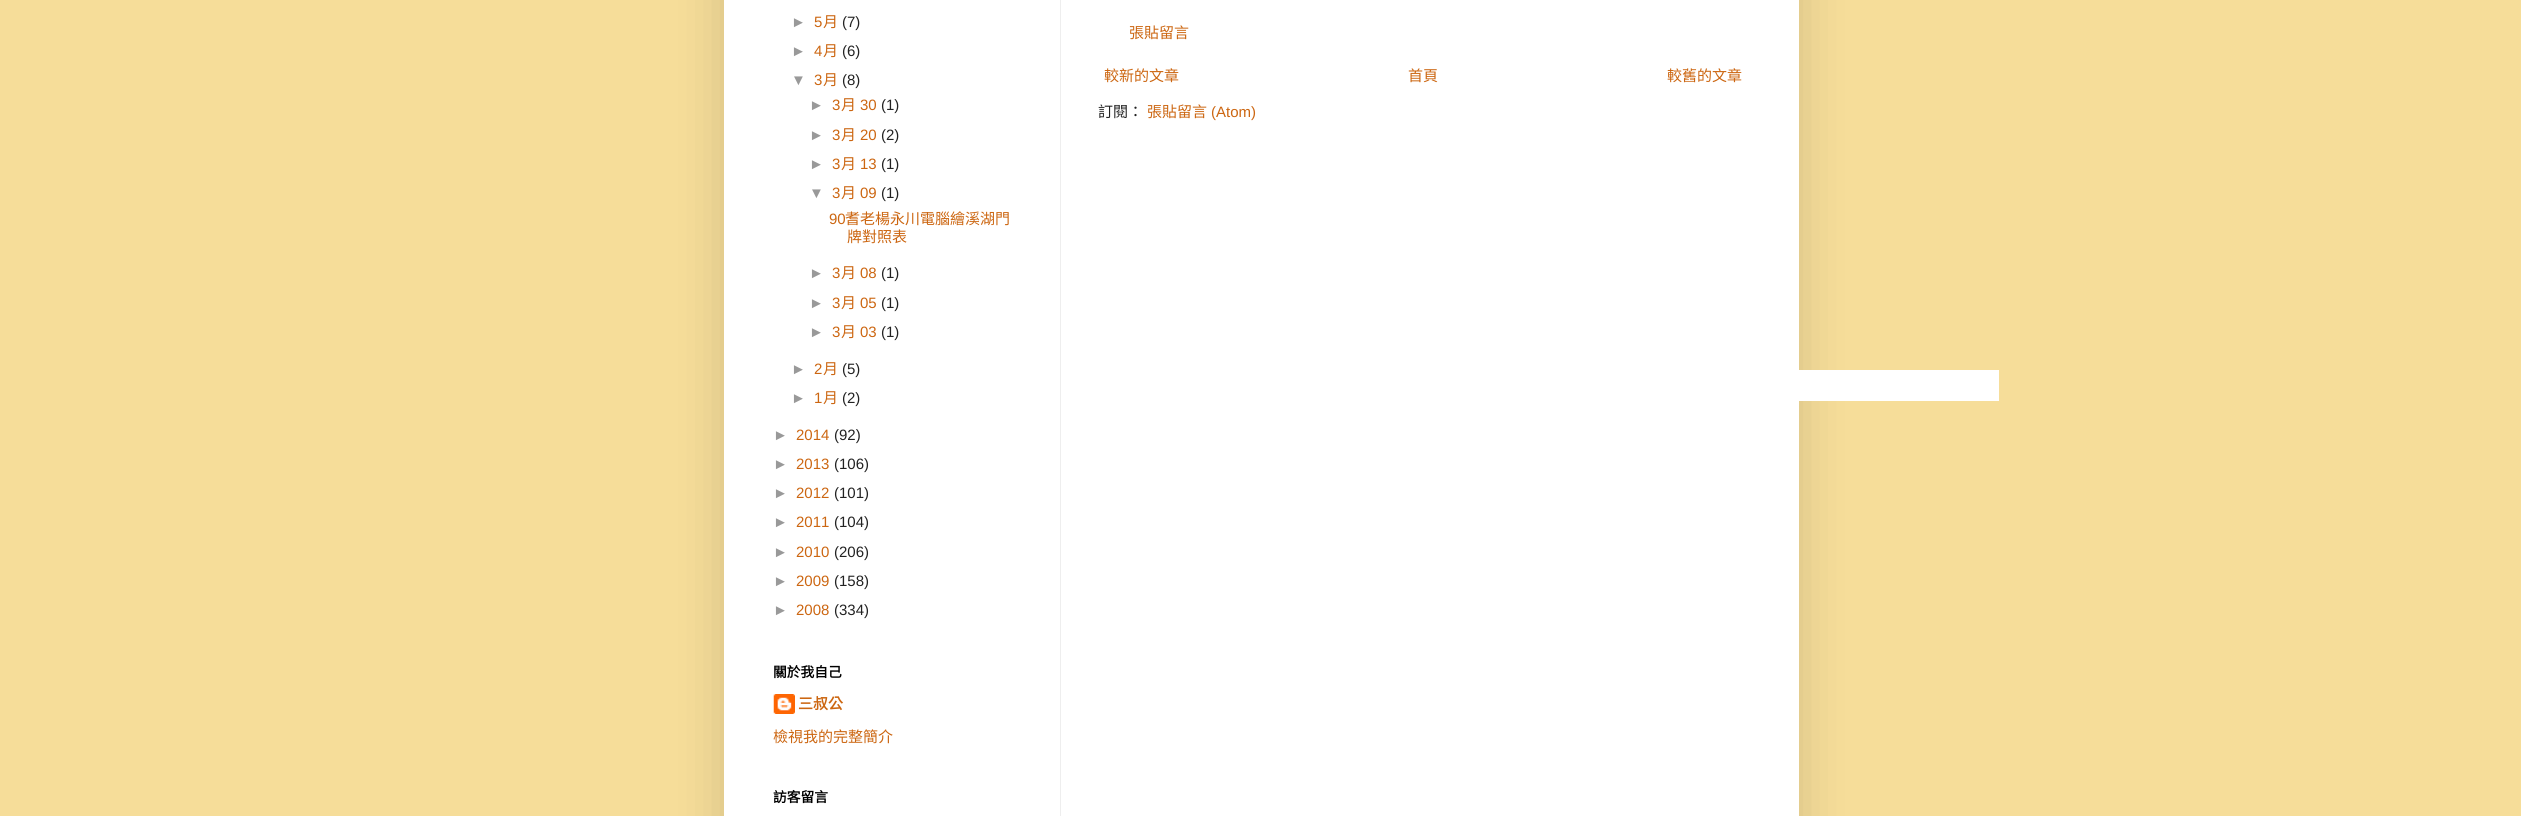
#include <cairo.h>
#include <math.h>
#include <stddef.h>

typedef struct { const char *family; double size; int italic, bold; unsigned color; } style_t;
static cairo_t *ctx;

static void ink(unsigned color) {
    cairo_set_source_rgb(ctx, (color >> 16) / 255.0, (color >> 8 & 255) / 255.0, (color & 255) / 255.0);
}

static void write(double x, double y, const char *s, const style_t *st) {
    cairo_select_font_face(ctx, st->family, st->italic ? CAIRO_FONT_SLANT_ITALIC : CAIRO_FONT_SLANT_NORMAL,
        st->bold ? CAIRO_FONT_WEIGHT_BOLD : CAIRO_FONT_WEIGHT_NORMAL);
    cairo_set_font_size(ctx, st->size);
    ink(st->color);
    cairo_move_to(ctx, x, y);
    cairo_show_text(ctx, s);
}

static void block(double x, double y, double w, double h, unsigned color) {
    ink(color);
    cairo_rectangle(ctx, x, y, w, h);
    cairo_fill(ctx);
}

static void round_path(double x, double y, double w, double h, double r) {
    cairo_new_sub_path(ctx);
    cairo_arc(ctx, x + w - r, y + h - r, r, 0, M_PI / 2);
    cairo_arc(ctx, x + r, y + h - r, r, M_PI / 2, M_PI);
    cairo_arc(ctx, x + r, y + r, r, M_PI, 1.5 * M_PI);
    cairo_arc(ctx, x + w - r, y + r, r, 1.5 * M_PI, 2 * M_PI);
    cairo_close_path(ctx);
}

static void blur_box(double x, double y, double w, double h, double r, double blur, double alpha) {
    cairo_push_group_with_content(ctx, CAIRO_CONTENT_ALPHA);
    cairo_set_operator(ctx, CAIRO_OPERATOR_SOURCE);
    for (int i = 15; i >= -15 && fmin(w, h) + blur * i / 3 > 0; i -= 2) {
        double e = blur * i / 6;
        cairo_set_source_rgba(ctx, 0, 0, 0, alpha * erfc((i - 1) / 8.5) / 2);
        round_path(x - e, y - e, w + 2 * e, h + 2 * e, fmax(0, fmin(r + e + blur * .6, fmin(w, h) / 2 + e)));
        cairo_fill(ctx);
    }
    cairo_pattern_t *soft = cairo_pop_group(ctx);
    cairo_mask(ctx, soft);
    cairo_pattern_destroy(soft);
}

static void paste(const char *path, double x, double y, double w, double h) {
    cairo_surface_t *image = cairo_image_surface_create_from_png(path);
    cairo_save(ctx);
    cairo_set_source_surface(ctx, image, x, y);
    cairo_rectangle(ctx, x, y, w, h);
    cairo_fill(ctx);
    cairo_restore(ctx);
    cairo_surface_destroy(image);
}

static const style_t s1 = {"Liberation Sans", 15, 0, 0, 0x999999};
static const style_t s2 = {"Liberation Sans", 15, 0, 0, 0xcc6611};
static const style_t s3 = {"Noto Sans CJK TC", 15, 0, 0, 0xcc6611};
static const style_t s4 = {"Liberation Sans", 15, 0, 0, 0x222222};
static const style_t s5 = {"Noto Sans CJK TC", 13.75, 0, 1, 0x000000};
static const style_t s6 = {"Noto Sans CJK TC", 15, 0, 1, 0xcc6611};
static const style_t s7 = {"Noto Sans CJK TC", 15, 0, 0, 0x222222};

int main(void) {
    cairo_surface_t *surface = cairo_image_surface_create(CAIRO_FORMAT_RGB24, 2521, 816);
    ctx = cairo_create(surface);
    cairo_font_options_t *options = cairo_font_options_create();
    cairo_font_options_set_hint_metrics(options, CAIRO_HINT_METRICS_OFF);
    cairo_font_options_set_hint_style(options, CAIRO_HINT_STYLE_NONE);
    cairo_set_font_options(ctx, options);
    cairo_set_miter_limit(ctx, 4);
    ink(0xf6dd99);
    cairo_paint(ctx);
    ink(0x000000);
    blur_box(724, -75, 1075, 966, 0, 25, 0.15);
    block(724, 0, 1075, 816, 0xffffff);
    block(1060, 0, 1, 816, 0xeeeeee);
    write(791, 27, "►", &s1);
    write(814, 27, "5", &s2);
    write(823, 27, "月", &s3);
    write(842, 27, "(7)", &s4);
    write(791, 56, "►", &s1);
    write(814, 56, "4", &s2);
    write(823, 56, "月", &s3);
    write(842, 56, "(6)", &s4);
    write(791, 85, "▼", &s1);
    write(814, 85, "3", &s2);
    write(823, 85, "月", &s3);
    write(842, 85, "(8)", &s4);
    write(809, 110, "►", &s1);
    write(832, 110, "3", &s2);
    write(841, 110, "月", &s3);
    write(860, 110, "30", &s2);
    write(881, 110, "(1)", &s4);
    write(809, 140, "►", &s1);
    write(832, 140, "3", &s2);
    write(841, 140, "月", &s3);
    write(860, 140, "20", &s2);
    write(881, 140, "(2)", &s4);
    write(809, 169, "►", &s1);
    write(832, 169, "3", &s2);
    write(841, 169, "月", &s3);
    write(860, 169, "13", &s2);
    write(881, 169, "(1)", &s4);
    write(809, 198, "▼", &s1);
    write(832, 198, "3", &s2);
    write(841, 198, "月", &s3);
    write(860, 198, "09", &s2);
    write(881, 198, "(1)", &s4);
    write(829, 224, "90", &s2);
    write(845, 224, "耆老楊永川電腦繪溪湖門", &s3);
    write(847, 242, "牌對照表", &s3);
    write(809, 278, "►", &s1);
    write(832, 278, "3", &s2);
    write(841, 278, "月", &s3);
    write(860, 278, "08", &s2);
    write(881, 278, "(1)", &s4);
    write(809, 308, "►", &s1);
    write(832, 308, "3", &s2);
    write(841, 308, "月", &s3);
    write(860, 308, "05", &s2);
    write(881, 308, "(1)", &s4);
    write(809, 337, "►", &s1);
    write(832, 337, "3", &s2);
    write(841, 337, "月", &s3);
    write(860, 337, "03", &s2);
    write(881, 337, "(1)", &s4);
    write(791, 374, "►", &s1);
    write(814, 374, "2", &s2);
    write(823, 374, "月", &s3);
    write(842, 374, "(5)", &s4);
    write(791, 403, "►", &s1);
    write(814, 403, "1", &s2);
    write(823, 403, "月", &s3);
    write(842, 403, "(2)", &s4);
    write(773, 440, "►", &s1);
    write(796, 440, "2014", &s2);
    write(834, 440, "(92)", &s4);
    write(773, 469, "►", &s1);
    write(796, 469, "2013", &s2);
    write(834, 469, "(106)", &s4);
    write(773, 498, "►", &s1);
    write(796, 498, "2012", &s2);
    write(834, 498, "(101)", &s4);
    write(773, 527, "►", &s1);
    write(796, 527, "2011", &s2);
    write(834, 527, "(104)", &s4);
    write(773, 557, "►", &s1);
    write(796, 557, "2010", &s2);
    write(834, 557, "(206)", &s4);
    write(773, 586, "►", &s1);
    write(796, 586, "2009", &s2);
    write(834, 586, "(158)", &s4);
    write(773, 615, "►", &s1);
    write(796, 615, "2008", &s2);
    write(834, 615, "(334)", &s4);
    write(773, 677, "關於我自己", &s5);
    paste("pic1.png", 773, 694, 22, 20);
    write(798, 709, "三叔公", &s6);
    write(773, 742, "檢視我的完整簡介", &s3);
    write(773, 802, "訪客留言", &s5);
    write(1129, 38, "張貼留言", &s3);
    block(1799, 370, 200, 31, 0xffffff);
    write(1104, 81, "較新的文章", &s3);
    write(1408, 81, "首頁", &s3);
    write(1667, 81, "較舊的文章", &s3);
    write(1098, 117, "訂閱：", &s7);
    write(1147, 117, "張貼留言", &s3);
    write(1211, 117, "(Atom)", &s2);
    cairo_surface_write_to_png(surface, "screenshot.png");
    cairo_font_options_destroy(options);
    cairo_destroy(ctx);
    cairo_surface_destroy(surface);
    return 0;
}
